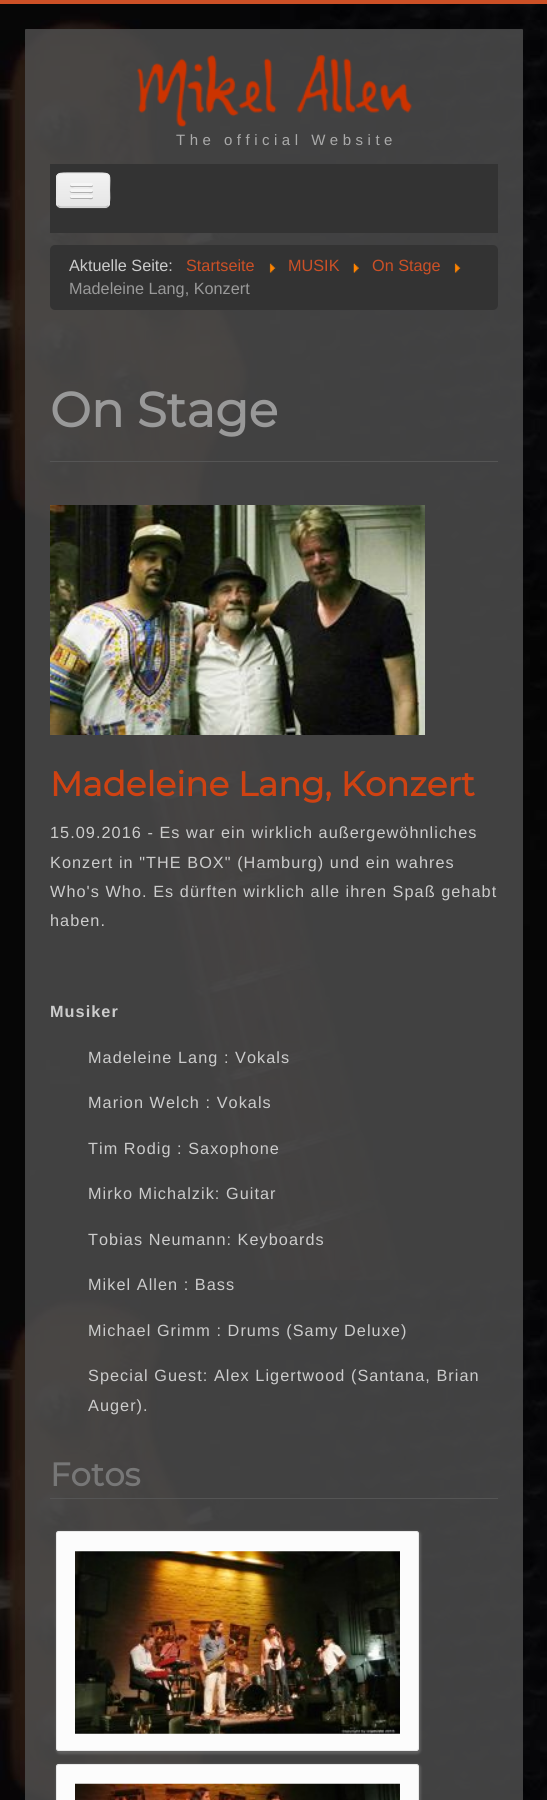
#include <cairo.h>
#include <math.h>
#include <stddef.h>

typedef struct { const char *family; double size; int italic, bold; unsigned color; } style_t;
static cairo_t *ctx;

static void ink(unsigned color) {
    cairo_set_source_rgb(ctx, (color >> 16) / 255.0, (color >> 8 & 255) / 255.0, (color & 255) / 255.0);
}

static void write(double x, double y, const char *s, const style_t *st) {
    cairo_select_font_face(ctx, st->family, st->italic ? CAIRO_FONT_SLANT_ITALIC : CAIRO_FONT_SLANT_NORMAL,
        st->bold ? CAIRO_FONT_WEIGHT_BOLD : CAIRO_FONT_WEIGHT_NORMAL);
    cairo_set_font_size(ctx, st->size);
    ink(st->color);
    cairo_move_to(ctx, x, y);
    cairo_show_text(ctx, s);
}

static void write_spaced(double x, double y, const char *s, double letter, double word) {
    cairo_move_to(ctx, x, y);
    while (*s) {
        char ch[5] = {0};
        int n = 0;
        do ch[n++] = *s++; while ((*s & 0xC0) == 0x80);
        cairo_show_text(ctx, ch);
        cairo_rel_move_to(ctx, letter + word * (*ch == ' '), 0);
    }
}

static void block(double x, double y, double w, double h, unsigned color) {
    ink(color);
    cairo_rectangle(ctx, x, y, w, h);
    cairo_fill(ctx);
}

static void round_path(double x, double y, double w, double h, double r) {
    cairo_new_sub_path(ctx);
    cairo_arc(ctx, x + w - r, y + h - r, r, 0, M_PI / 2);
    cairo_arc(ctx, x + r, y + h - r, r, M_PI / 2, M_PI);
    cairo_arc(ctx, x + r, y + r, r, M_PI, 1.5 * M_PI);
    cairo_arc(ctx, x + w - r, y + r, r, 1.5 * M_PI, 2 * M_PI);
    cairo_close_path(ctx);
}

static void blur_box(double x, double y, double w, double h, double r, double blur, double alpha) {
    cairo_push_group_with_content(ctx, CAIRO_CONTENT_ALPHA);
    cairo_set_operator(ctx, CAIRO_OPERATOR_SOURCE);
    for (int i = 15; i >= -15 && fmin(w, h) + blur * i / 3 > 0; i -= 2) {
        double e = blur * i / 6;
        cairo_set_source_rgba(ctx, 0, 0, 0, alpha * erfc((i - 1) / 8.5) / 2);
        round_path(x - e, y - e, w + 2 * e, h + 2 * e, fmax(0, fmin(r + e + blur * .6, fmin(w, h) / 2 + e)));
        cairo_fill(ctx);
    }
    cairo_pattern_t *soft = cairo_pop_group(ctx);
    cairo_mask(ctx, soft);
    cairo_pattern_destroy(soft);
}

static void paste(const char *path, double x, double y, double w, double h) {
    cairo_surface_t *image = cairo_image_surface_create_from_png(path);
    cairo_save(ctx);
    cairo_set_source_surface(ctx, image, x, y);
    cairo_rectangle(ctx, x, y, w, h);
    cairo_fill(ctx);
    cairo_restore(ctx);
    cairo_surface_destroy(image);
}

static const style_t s1 = {"Liberation Sans", 16.25, 0, 0, 0xcccccc};
static const style_t s2 = {"Liberation Sans", 16.25, 0, 0, 0xcc5026};
static const style_t s3 = {"Liberation Sans", 16.25, 0, 0, 0x999999};
static const style_t s4 = {"Montserrat", 48.75, 0, 1, 0x999999};
static const style_t s5 = {"Montserrat", 34.1, 0, 1, 0xcf4212};
static const style_t s6 = {"Montserrat", 32.5, 0, 1, 0x777777};

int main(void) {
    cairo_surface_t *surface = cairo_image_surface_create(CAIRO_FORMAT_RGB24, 547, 1800);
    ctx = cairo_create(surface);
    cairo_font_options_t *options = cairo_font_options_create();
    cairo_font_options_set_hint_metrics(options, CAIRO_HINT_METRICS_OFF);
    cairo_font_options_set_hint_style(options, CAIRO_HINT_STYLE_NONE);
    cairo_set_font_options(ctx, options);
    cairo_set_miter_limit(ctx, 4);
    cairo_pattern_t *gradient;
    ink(0xffffff);
    cairo_paint(ctx);
    paste("pic1.png", 0, 4, 547, 1796);
    block(0, 0, 547, 4, 0xcc5026);
    cairo_set_source_rgba(ctx, 0.314, 0.314, 0.314, 0.8);
    round_path(25, 29, 498, 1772, 1);
    cairo_fill(ctx);
    paste("pic2.png", 137, 54, 275, 73);
    cairo_select_font_face(ctx, "Liberation Sans", CAIRO_FONT_SLANT_NORMAL, CAIRO_FONT_WEIGHT_NORMAL);
    cairo_set_font_size(ctx, 15);
    ink(0xaaaaaa);
    write_spaced(176, 145, "The official Website", 4.5, 0);
    block(50, 164, 448, 69, 0x333333);
    ink(0x404040);
    cairo_new_path(ctx);
    cairo_move_to(ctx, 56, 177);
    cairo_line_to(ctx, 56, 205);
    cairo_curve_to(ctx, 57, 210, 65, 209, 68, 209);
    cairo_line_to(ctx, 98, 209);
    cairo_curve_to(ctx, 104, 209, 110, 211, 110, 202);
    cairo_curve_to(ctx, 110, 205, 108, 208, 105, 208);
    cairo_line_to(ctx, 61, 208);
    cairo_curve_to(ctx, 58, 208, 56, 205, 56, 202);
    cairo_close_path(ctx);
    cairo_fill(ctx);
    ink(0xededed);
    round_path(56, 173, 54, 35, 5);
    cairo_fill(ctx);
    cairo_save(ctx);
    round_path(56, 173, 54, 35, 5);
    cairo_clip(ctx);
    gradient = cairo_pattern_create_linear(83, 174, 83, 206);
    cairo_pattern_add_color_stop_rgba(gradient, 0, 0.949, 0.949, 0.949, 1);
    cairo_pattern_add_color_stop_rgba(gradient, 1, 0.902, 0.902, 0.902, 1);
    cairo_set_source(ctx, gradient);
    cairo_pattern_destroy(gradient);
    cairo_rectangle(ctx, 56, 174, 54, 32);
    cairo_fill(ctx);
    cairo_restore(ctx);
    cairo_new_path(ctx);
    cairo_move_to(ctx, 108, 205.5);
    cairo_curve_to(ctx, 107.5, 206.5, 106, 207, 105, 207);
    cairo_line_to(ctx, 61, 207);
    cairo_curve_to(ctx, 60, 207, 59, 206.5, 58, 205.5);
    ink(0xbfbfbf);
    cairo_set_line_width(ctx, 1.2);
    cairo_stroke(ctx);
    cairo_new_path(ctx);
    cairo_move_to(ctx, 58, 205.5);
    cairo_curve_to(ctx, 55.5, 203, 57, 193, 57, 190);
    cairo_curve_to(ctx, 57, 174, 53.5, 173, 68.5, 173);
    cairo_line_to(ctx, 97.5, 173);
    cairo_curve_to(ctx, 112.5, 173, 109.5, 174, 109.5, 190);
    cairo_curve_to(ctx, 109.5, 193, 110.5, 203, 108, 205.5);
    ink(0xe6e6e6);
    cairo_stroke(ctx);
    ink(0xb2b2b2);
    cairo_new_path(ctx);
    cairo_move_to(ctx, 70.5, 184.5);
    cairo_line_to(ctx, 70, 186);
    cairo_curve_to(ctx, 70.5, 188, 74, 187, 75, 187);
    cairo_line_to(ctx, 88, 187);
    cairo_curve_to(ctx, 89.5, 187, 93, 188, 93, 185.5);
    cairo_line_to(ctx, 92.5, 184.5);
    cairo_line_to(ctx, 91.5, 185);
    cairo_curve_to(ctx, 89.5, 185.5, 71, 185.5, 70.5, 184.5);
    cairo_close_path(ctx);
    cairo_fill(ctx);
    ink(0xf5f5f5);
    round_path(70, 183, 23, 3, 1.5);
    cairo_fill(ctx);
    ink(0xb0b0b0);
    cairo_new_path(ctx);
    cairo_move_to(ctx, 70, 190.5);
    cairo_curve_to(ctx, 68.5, 193.5, 74.5, 193, 75, 193);
    cairo_line_to(ctx, 88, 193);
    cairo_curve_to(ctx, 89, 193, 92.5, 194, 93, 192);
    cairo_curve_to(ctx, 93, 191.5, 93, 190.5, 92.5, 190.5);
    cairo_line_to(ctx, 91.5, 191);
    cairo_line_to(ctx, 71, 191);
    cairo_close_path(ctx);
    cairo_fill(ctx);
    ink(0xf5f5f5);
    round_path(70, 189, 23, 3, 1.5);
    cairo_fill(ctx);
    ink(0xafafaf);
    cairo_new_path(ctx);
    cairo_move_to(ctx, 70, 197);
    cairo_curve_to(ctx, 69, 199.5, 74, 199, 75, 199);
    cairo_line_to(ctx, 88, 199);
    cairo_curve_to(ctx, 89, 199, 92.5, 200, 93, 198);
    cairo_curve_to(ctx, 93, 197.5, 93, 196.5, 92.5, 196.5);
    cairo_curve_to(ctx, 92.5, 197, 92, 197.5, 91, 197.5);
    cairo_line_to(ctx, 71, 197.5);
    cairo_curve_to(ctx, 71, 197.5, 70.5, 197, 70, 197);
    cairo_close_path(ctx);
    cairo_fill(ctx);
    ink(0xf5f5f5);
    round_path(70, 195, 23, 3, 1.5);
    cairo_fill(ctx);
    ink(0x333333);
    round_path(50, 245, 448, 65, 5);
    cairo_fill(ctx);
    write(69, 271, "Aktuelle Seite:", &s1);
    write(186, 271, "Startseite", &s2);
    paste("pic3.png", 269, 263, 7, 10);
    write(288, 271, "MUSIK", &s2);
    paste("pic4.png", 353, 263, 6, 10);
    write(372, 271, "On Stage", &s2);
    paste("pic3.png", 454, 263, 7, 10);
    write(69, 294, "Madeleine Lang, Konzert", &s3);
    block(50, 461, 448, 1, 0x555555);
    write(50, 427, "On Stage", &s4);
    paste("pic5.png", 50, 505, 375, 230);
    write(50, 796, "Madeleine Lang, Konzert", &s5);
    cairo_select_font_face(ctx, "Liberation Sans", CAIRO_FONT_SLANT_NORMAL, CAIRO_FONT_WEIGHT_NORMAL);
    cairo_set_font_size(ctx, 16.25);
    ink(0xcccccc);
    write_spaced(50, 838, "15.09.2016 - Es war ein wirklich außergewöhnliches", 1.05, 0);
    write_spaced(50, 868, "Konzert in \"THE BOX\" (Hamburg) und ein wahres", 1.05, 0);
    write_spaced(50, 897, "Who's Who. Es dürften wirklich alle ihren Spaß gehabt", 1.05, 0);
    write_spaced(50, 926, "haben.", 1.05, 0);
    cairo_select_font_face(ctx, "Liberation Sans", CAIRO_FONT_SLANT_NORMAL, CAIRO_FONT_WEIGHT_BOLD);
    write_spaced(50, 1017, "Musiker", 1.05, 0);
    cairo_select_font_face(ctx, "Liberation Sans", CAIRO_FONT_SLANT_NORMAL, CAIRO_FONT_WEIGHT_NORMAL);
    write_spaced(88, 1063, "Madeleine Lang : Vokals", 1.05, 0);
    write_spaced(88, 1108, "Marion Welch : Vokals", 1.05, 0);
    write_spaced(88, 1154, "Tim Rodig : Saxophone", 1.05, 0);
    write_spaced(88, 1199, "Mirko Michalzik: Guitar", 1.05, 0);
    write_spaced(88, 1245, "Tobias Neumann: Keyboards", 1.05, 0);
    write_spaced(88, 1290, "Mikel Allen : Bass", 1.05, 0);
    write_spaced(88, 1336, "Michael Grimm : Drums (Samy Deluxe)", 1.05, 0);
    write_spaced(88, 1381, "Special Guest: Alex Ligertwood (Santana, Brian", 1.05, 0);
    write_spaced(88, 1411, "Auger).", 1.05, 0);
    block(50, 1498, 448, 1, 0x555555);
    write(50, 1486, "Fotos", &s6);
    ink(0x787878);
    blur_box(56, 1531, 365, 223, 4, 1, 0.5);
    ink(0xfcfcfc);
    round_path(56.5, 1531.5, 362, 219, 2);
    cairo_fill_preserve(ctx);
    ink(0xe8e8e8);
    cairo_set_line_width(ctx, 1);
    cairo_stroke(ctx);
    paste("pic6.png", 75, 1551, 325, 183);
    ink(0x787878);
    blur_box(56, 1764, 365, 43, 4, 1, 0.5);
    ink(0xfcfcfc);
    round_path(56.5, 1764.5, 362, 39, 2);
    cairo_fill_preserve(ctx);
    ink(0xe8e8e8);
    cairo_stroke(ctx);
    paste("pic7.png", 75, 1783, 325, 17);
    cairo_surface_write_to_png(surface, "screenshot.png");
    cairo_font_options_destroy(options);
    cairo_destroy(ctx);
    cairo_surface_destroy(surface);
    return 0;
}
